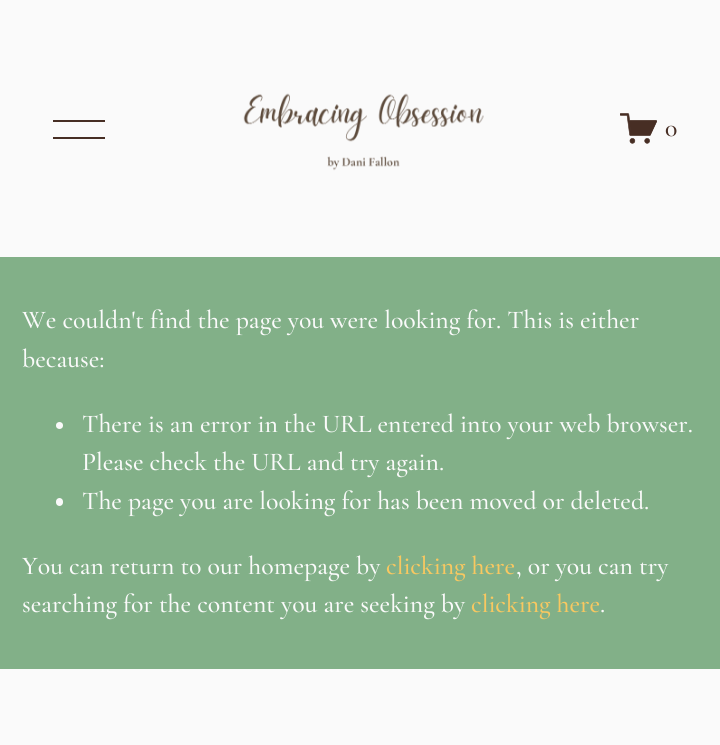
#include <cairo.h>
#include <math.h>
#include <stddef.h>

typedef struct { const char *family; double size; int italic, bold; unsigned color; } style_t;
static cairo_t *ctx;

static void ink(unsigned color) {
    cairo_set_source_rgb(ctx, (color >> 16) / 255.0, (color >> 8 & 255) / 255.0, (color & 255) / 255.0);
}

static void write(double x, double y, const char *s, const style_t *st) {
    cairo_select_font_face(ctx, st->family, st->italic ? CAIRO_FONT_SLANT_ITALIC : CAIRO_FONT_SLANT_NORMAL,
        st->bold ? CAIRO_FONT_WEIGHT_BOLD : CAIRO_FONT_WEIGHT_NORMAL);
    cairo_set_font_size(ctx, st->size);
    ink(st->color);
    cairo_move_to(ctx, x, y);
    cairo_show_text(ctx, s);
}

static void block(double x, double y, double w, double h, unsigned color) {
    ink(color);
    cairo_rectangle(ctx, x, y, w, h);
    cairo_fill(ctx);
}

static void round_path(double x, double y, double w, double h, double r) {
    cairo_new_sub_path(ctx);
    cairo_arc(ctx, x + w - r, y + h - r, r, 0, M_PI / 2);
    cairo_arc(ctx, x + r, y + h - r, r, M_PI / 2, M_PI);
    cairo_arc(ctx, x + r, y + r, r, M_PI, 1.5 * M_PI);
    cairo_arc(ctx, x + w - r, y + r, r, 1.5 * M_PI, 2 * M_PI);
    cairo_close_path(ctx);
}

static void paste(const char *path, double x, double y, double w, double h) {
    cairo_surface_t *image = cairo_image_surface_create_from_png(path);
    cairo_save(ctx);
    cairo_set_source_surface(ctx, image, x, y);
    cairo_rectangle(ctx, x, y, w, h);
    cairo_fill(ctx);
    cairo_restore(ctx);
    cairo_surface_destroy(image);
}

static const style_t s1 = {"Cormorant Garamond Medium", 25.75, 0, 0, 0x472e24};
static const style_t s2 = {"Cormorant Garamond Medium", 25.75, 0, 0, 0xfafafa};
static const style_t s3 = {"Cormorant Garamond Medium", 25.75, 0, 0, 0xf9c860};

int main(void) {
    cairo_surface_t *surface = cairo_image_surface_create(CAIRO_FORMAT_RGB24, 720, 745);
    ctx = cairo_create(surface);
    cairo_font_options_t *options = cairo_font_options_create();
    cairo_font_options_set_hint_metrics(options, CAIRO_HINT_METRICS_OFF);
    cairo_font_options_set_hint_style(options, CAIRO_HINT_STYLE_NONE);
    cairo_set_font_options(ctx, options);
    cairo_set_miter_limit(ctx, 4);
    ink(0x82b088);
    cairo_paint(ctx);
    block(0, 0, 720, 257, 0xfafafa);
    block(53, 120, 52, 2, 0x472e24);
    block(53, 137, 52, 2, 0x472e24);
    paste("pic1.png", 243, 93, 241, 78);
    paste("pic2.png", 620, 113, 37, 31);
    write(665, 136, "0", &s1);
    write(22, 328, "We couldn't find the page you were looking for. This is either", &s2);
    write(22, 367, "because:", &s2);
    cairo_new_path(ctx);
    cairo_arc(ctx, 59.5, 425.5, 3.5, 0, 2 * M_PI);
    cairo_fill(ctx);
    write(82, 432, "There is an error in the URL entered into your web browser.", &s2);
    write(82, 470, "Please check the URL and try again.", &s2);
    round_path(56, 498, 7, 8, 3.5);
    cairo_fill(ctx);
    write(82, 509, "The page you are looking for has been moved or deleted.", &s2);
    write(22, 574, "You can return to our homepage by", &s2);
    write(386, 574, "clicking here", &s3);
    write(516, 574, ", or you can try", &s2);
    write(22, 612, "searching for the content you are seeking by", &s2);
    write(471, 612, "clicking here", &s3);
    write(600, 612, ".", &s2);
    block(0, 669, 720, 76, 0xfafafa);
    cairo_surface_write_to_png(surface, "screenshot.png");
    cairo_font_options_destroy(options);
    cairo_destroy(ctx);
    cairo_surface_destroy(surface);
    return 0;
}
